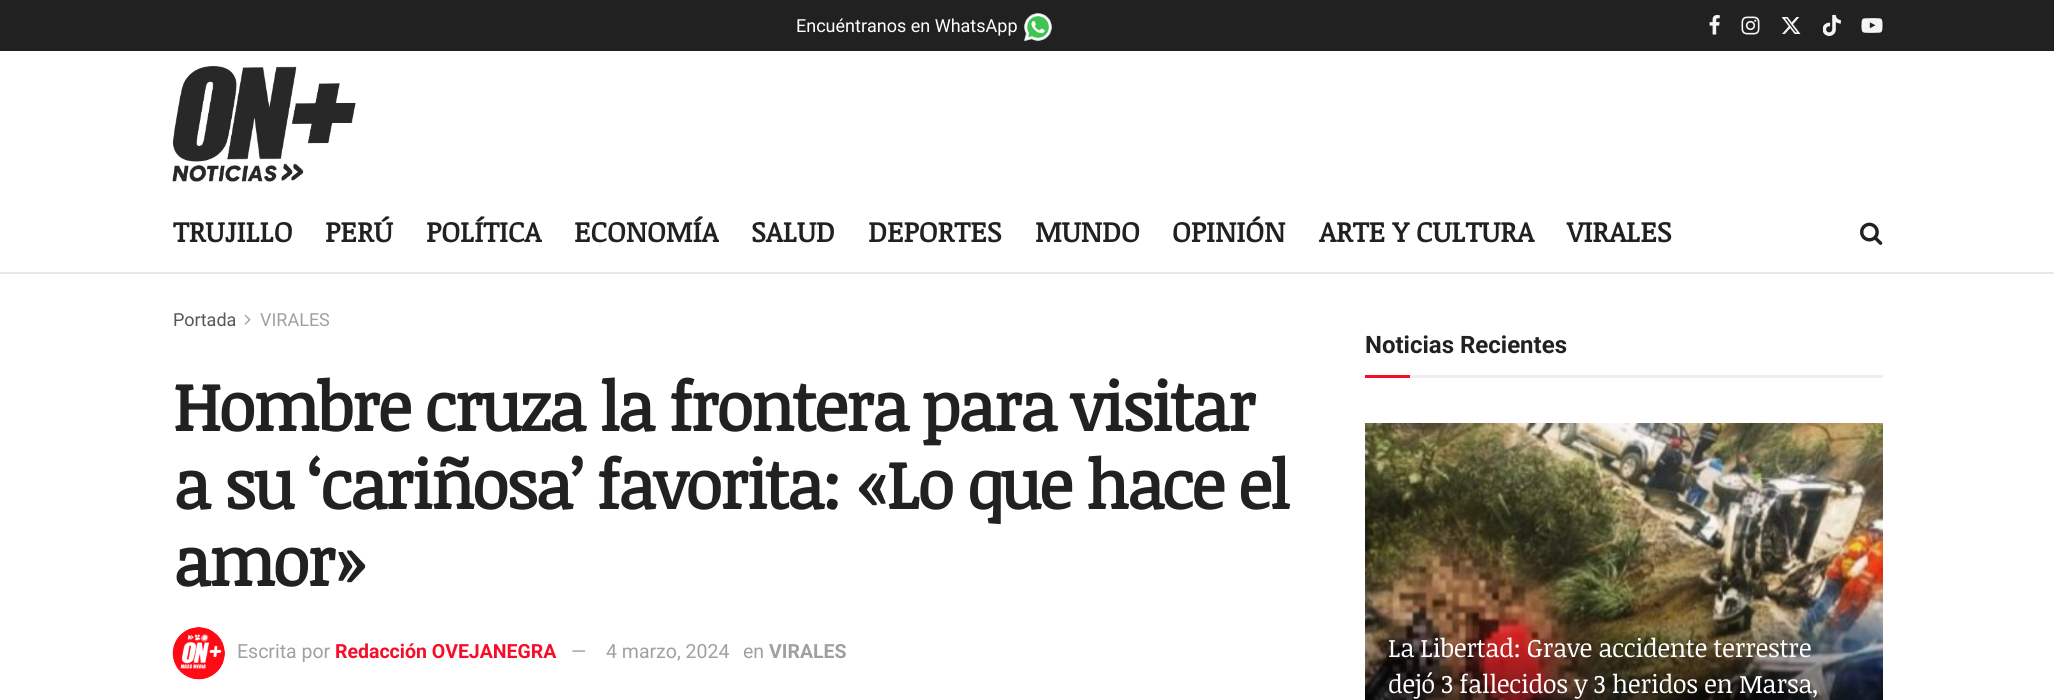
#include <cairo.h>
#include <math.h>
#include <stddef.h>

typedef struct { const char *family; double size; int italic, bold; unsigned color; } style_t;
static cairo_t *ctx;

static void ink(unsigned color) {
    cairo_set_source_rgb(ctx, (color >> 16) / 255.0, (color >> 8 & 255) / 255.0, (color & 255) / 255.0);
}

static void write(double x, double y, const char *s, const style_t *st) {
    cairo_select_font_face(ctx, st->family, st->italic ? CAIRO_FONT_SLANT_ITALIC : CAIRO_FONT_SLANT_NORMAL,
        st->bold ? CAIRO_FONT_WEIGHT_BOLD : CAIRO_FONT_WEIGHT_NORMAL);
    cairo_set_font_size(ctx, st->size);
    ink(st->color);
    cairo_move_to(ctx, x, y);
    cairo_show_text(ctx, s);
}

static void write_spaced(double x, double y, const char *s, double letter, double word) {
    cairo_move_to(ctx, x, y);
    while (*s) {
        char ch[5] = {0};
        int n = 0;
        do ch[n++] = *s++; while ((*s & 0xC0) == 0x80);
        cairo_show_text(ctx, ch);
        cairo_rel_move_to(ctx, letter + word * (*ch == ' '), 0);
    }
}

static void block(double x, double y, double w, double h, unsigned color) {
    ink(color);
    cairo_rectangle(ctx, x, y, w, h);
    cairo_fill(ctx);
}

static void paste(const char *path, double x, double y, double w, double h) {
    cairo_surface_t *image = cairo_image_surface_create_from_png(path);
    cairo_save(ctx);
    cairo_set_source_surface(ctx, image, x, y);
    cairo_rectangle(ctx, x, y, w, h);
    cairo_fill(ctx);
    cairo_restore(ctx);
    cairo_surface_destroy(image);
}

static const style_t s1 = {"Roboto", 18, 0, 0, 0xffffff};
static const style_t s2 = {"Noticia Text", 28.5, 0, 1, 0x212121};
static const style_t s3 = {"Roboto", 18, 0, 0, 0x53585c};
static const style_t s4 = {"Roboto", 18, 0, 0, 0xa0a0a0};
static const style_t s5 = {"Roboto", 19.5, 0, 0, 0xa0a0a0};
static const style_t s6 = {"Roboto", 19.5, 0, 1, 0xf70d28};
static const style_t s7 = {"Roboto", 19.5, 0, 1, 0xa0a0a0};
static const style_t s8 = {"Roboto", 24, 0, 1, 0x212121};

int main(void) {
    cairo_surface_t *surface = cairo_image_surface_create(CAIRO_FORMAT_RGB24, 2054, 700);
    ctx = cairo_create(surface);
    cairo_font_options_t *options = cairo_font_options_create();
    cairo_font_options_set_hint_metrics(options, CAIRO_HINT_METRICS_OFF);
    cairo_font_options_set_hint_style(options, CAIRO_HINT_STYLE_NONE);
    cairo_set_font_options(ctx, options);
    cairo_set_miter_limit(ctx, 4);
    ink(0xffffff);
    cairo_paint(ctx);
    block(0, 0, 2054, 51, 0x212121);
    write(796, 32, "Encuéntranos en WhatsApp", &s1);
    paste("pic1.png", 1024, 13, 28, 29);
    paste("pic2.png", 1709, 15, 11, 20);
    paste("pic3.png", 1741, 16, 19, 19);
    paste("pic4.png", 1781, 17, 20, 17);
    paste("pic5.png", 1823, 15, 18, 21);
    paste("pic6.png", 1861, 18, 22, 15);
    paste("pic7.png", 172, 66, 184, 116);
    block(0, 272, 2054, 2, 0xe8e8e8);
    write(173, 242, "TRUJILLO", &s2);
    write(325, 242, "PERÚ", &s2);
    write(426, 242, "POLÍTICA", &s2);
    write(574, 242, "ECONOMÍA", &s2);
    write(751, 242, "SALUD", &s2);
    write(868, 242, "DEPORTES", &s2);
    write(1035, 242, "MUNDO", &s2);
    write(1172, 242, "OPINIÓN", &s2);
    write(1319, 242, "ARTE Y CULTURA", &s2);
    write(1567, 242, "VIRALES", &s2);
    paste("pic8.png", 1860, 222, 23, 23);
    write(173, 326, "Portada", &s3);
    paste("pic9.png", 244, 314, 7, 11);
    write(260, 326, "VIRALES", &s4);
    cairo_select_font_face(ctx, "Noticia Text", CAIRO_FONT_SLANT_NORMAL, CAIRO_FONT_WEIGHT_BOLD);
    cairo_set_font_size(ctx, 67.5);
    ink(0x212121);
    write_spaced(173, 431, "Hombre cruza la frontera para visitar", -2.7, 0);
    write_spaced(173, 509, "a su ‘cariñosa’ favorita: «Lo que hace el", -2.7, 0);
    write_spaced(173, 586, "amor»", -2.7, 0);
    paste("pic10.png", 172, 627, 53, 53);
    write(237, 658, "Escrita por", &s5);
    write(335, 658, "Redacción OVEJANEGRA", &s6);
    write(571, 658, "—", &s5);
    write(606, 658, "4 marzo, 2024", &s5);
    write(743, 658, "en", &s5);
    write(769, 658, "VIRALES", &s7);
    block(1410, 375, 473, 3, 0xeeeeee);
    write(1365, 353, "Noticias Recientes", &s8);
    block(1365, 375, 45, 3, 0xf70d28);
    paste("pic11.png", 1365, 423, 518, 277);
    cairo_select_font_face(ctx, "Noticia Text", CAIRO_FONT_SLANT_NORMAL, CAIRO_FONT_WEIGHT_NORMAL);
    cairo_set_font_size(ctx, 25.5);
    ink(0xffffff);
    write_spaced(1388, 657, "La Libertad: Grave accidente terrestre", -0.5, 0);
    write_spaced(1388, 693, "dejó 3 fallecidos y 3 heridos en Marsa,", -0.5, 0);
    cairo_surface_write_to_png(surface, "screenshot.png");
    cairo_font_options_destroy(options);
    cairo_destroy(ctx);
    cairo_surface_destroy(surface);
    return 0;
}
